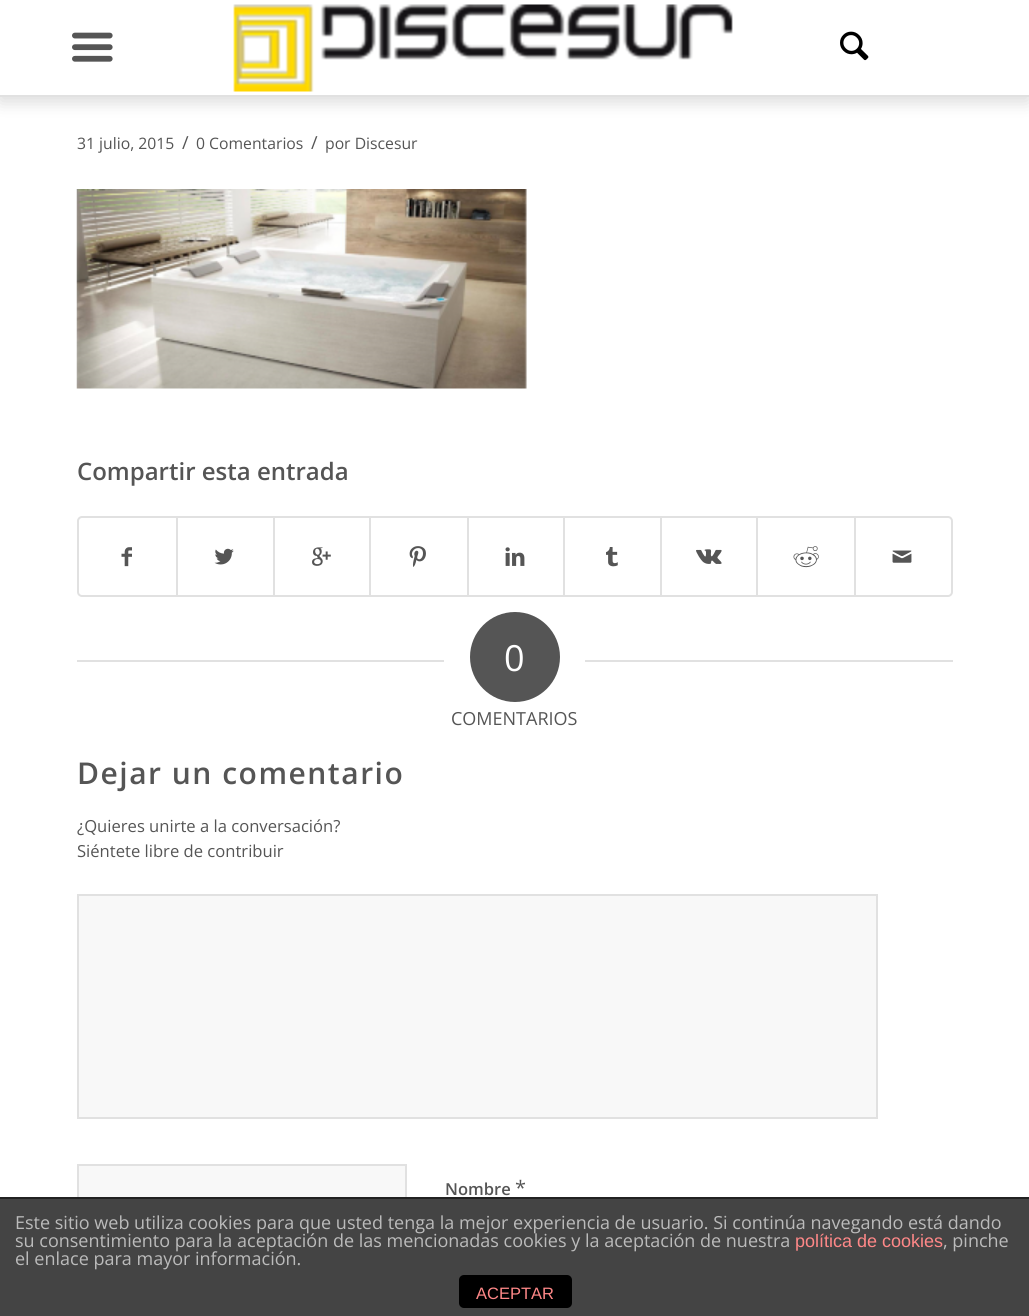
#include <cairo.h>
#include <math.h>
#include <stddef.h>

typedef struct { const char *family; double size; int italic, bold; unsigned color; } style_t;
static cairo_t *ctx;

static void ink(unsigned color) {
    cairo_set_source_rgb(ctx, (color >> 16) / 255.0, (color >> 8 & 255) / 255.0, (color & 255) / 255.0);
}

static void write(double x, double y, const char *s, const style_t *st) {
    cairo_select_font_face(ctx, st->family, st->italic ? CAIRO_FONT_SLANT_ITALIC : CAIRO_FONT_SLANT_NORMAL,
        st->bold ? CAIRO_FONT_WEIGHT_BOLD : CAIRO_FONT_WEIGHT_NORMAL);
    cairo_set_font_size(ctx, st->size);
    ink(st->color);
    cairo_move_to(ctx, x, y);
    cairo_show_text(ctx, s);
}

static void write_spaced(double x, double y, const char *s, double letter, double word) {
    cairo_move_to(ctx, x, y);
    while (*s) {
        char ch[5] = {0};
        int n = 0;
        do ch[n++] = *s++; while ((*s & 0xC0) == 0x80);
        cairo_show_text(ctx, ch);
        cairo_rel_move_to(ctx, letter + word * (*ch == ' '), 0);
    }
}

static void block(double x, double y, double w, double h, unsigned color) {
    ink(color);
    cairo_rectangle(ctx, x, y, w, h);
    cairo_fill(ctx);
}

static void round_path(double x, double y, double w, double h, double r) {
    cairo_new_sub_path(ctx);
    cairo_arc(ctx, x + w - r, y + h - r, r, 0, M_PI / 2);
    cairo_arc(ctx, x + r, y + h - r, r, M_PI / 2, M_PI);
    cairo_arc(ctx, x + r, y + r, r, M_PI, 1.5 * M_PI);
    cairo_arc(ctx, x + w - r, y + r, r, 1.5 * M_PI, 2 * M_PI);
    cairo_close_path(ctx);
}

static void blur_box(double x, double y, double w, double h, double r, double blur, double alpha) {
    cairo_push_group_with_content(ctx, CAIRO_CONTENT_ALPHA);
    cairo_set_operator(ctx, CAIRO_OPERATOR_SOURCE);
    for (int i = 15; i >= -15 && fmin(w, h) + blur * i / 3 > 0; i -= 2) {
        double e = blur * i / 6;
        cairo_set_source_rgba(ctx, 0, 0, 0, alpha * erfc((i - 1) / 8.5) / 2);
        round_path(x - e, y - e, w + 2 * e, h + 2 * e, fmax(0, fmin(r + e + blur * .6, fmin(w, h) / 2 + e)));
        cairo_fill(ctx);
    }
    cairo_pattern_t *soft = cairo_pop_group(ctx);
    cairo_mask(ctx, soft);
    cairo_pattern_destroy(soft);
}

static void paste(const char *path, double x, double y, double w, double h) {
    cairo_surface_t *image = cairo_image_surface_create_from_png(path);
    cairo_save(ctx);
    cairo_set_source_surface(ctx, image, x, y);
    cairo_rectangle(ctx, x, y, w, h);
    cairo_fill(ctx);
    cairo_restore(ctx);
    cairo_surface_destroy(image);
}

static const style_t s1 = {"Open Sans", 15.75, 0, 0, 0x555555};
static const style_t s2 = {"Open Sans", 18, 0, 0, 0x555555};
static const style_t s3 = {"Open Sans SemiBold", 24, 0, 0, 0x555555};
static const style_t s4 = {"Open Sans", 36, 0, 0, 0xffffff};
static const style_t s5 = {"Open Sans", 16.6, 0, 0, 0x555555};
static const style_t s6 = {"Open Sans SemiBold", 16.5, 0, 0, 0x555555};
static const style_t s7 = {"Open Sans", 20, 0, 0, 0x555555};
static const style_t s8 = {"Open Sans", 18, 0, 0, 0xbbbbbb};
static const style_t s9 = {"Liberation Sans", 18, 0, 0, 0xff8888};
static const style_t s10 = {"Liberation Sans", 16.5, 0, 0, 0xff8888};

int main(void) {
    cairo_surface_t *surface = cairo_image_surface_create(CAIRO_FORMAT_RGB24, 1029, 1316);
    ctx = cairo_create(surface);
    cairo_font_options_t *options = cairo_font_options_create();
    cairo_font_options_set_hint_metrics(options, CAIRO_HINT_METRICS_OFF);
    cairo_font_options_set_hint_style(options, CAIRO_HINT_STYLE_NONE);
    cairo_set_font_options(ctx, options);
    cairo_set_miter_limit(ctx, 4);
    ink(0xffffff);
    cairo_paint(ctx);
    ink(0x000000);
    blur_box(0, 5, 1029, 96, 0, 9, 0.16);
    block(0, 0, 1029, 95, 0xffffff);
    paste("pic1.png", 72, 32, 41, 30);
    paste("pic2.png", 233, 4, 500, 88);
    paste("pic3.png", 840, 31, 29, 30);
    block(0, 95, 1029, 2, 0xe1e1e1);
    write(77, 149, "31 julio, 2015", &s1);
    write(182, 149, "/", &s2);
    write(196, 149, "0 Comentarios", &s1);
    write(311, 149, "/", &s2);
    write(325, 149, "por Discesur", &s1);
    paste("pic4.png", 76, 189, 451, 200);
    write(77, 480, "Compartir esta entrada", &s3);
    round_path(78, 517, 874, 79, 4);
    ink(0xe1e1e1);
    cairo_stroke(ctx);
    paste("pic5.png", 121, 547, 11, 20);
    block(176, 518, 2, 78, 0xe1e1e1);
    paste("pic6.png", 214, 548, 20, 17);
    block(273, 518, 2, 78, 0xe1e1e1);
    paste("pic7.png", 312, 547, 19, 19);
    block(369, 518, 2, 78, 0xe1e1e1);
    paste("pic8.png", 409, 546, 17, 21);
    block(467, 518, 2, 78, 0xe1e1e1);
    paste("pic9.png", 505, 547, 20, 19);
    block(563, 518, 2, 78, 0xe1e1e1);
    paste("pic10.png", 606, 547, 12, 20);
    block(660, 518, 2, 78, 0xe1e1e1);
    paste("pic11.png", 696, 549, 26, 15);
    block(756, 518, 2, 78, 0xe1e1e1);
    paste("pic12.png", 793, 546, 26, 22);
    block(854, 518, 2, 78, 0xe1e1e1);
    paste("pic13.png", 892, 550, 20, 13);
    block(77, 660, 367, 2, 0xe1e1e1);
    ink(0x555555);
    cairo_arc(ctx, 515, 657, 45, 0, 2 * M_PI);
    cairo_fill(ctx);
    write(504, 671, "0", &s4);
    block(585, 660, 368, 2, 0xe1e1e1);
    write(451, 725, "COMENTARIOS", &s2);
    cairo_select_font_face(ctx, "Open Sans SemiBold", CAIRO_FONT_SLANT_NORMAL, CAIRO_FONT_WEIGHT_NORMAL);
    cairo_set_font_size(ctx, 30);
    write_spaced(77, 784, "Dejar un comentario", 1.5, 0);
    write(77, 832, "¿Quieres unirte a la conversación?", &s5);
    write(77, 857, "Siéntete libre de contribuir", &s5);
    ink(0xf8f8f8);
    cairo_rectangle(ctx, 78, 895, 799, 223);
    cairo_fill_preserve(ctx);
    ink(0xe1e1e1);
    cairo_stroke(ctx);
    block(79, 1166, 326, 31, 0xf8f8f8);
    cairo_rectangle(ctx, 78, 1165, 328, 48);
    ink(0xe1e1e1);
    cairo_stroke(ctx);
    write(445, 1195, "Nombre", &s6);
    write(515, 1195, "*", &s7);
    block(0, 1199, 1029, 117, 0x444444);
    block(0, 1197, 1029, 2, 0x222222);
    write(15, 1229, "Este sitio web utiliza cookies para que usted tenga la mejor experiencia de usuario. Si continúa navegando está dando", &s8);
    write(15, 1247, "su consentimiento para la aceptación de las mencionadas cookies y la aceptación de nuestra", &s8);
    write(795, 1247, "política de cookies", &s9);
    write(943, 1247, ", pinche", &s8);
    write(15, 1265, "el enlace para mayor información.", &s8);
    ink(0x000000);
    round_path(459, 1275, 113, 33, 5);
    cairo_fill(ctx);
    write(476, 1299, "ACEPTAR", &s10);
    cairo_surface_write_to_png(surface, "screenshot.png");
    cairo_font_options_destroy(options);
    cairo_destroy(ctx);
    cairo_surface_destroy(surface);
    return 0;
}
